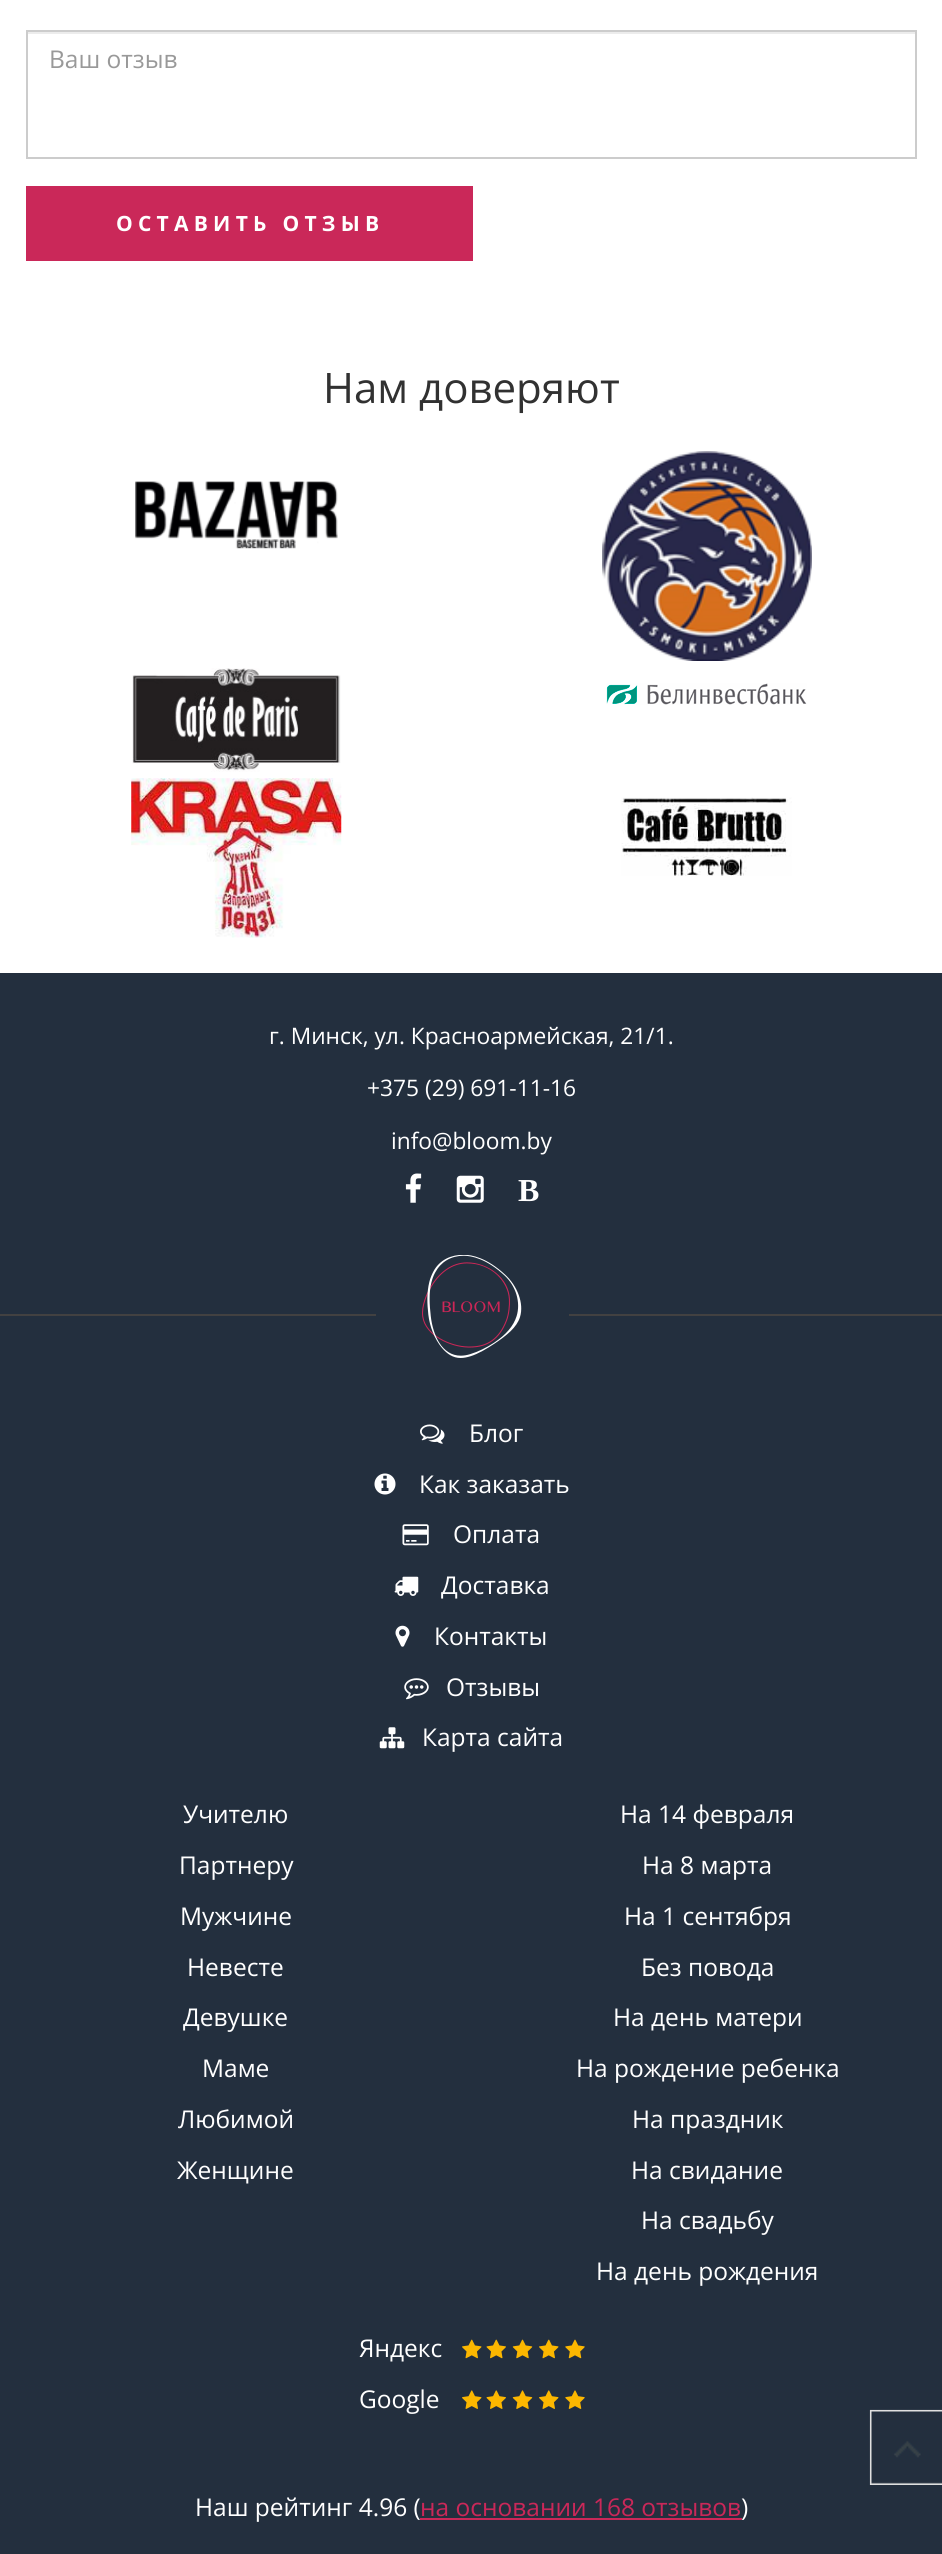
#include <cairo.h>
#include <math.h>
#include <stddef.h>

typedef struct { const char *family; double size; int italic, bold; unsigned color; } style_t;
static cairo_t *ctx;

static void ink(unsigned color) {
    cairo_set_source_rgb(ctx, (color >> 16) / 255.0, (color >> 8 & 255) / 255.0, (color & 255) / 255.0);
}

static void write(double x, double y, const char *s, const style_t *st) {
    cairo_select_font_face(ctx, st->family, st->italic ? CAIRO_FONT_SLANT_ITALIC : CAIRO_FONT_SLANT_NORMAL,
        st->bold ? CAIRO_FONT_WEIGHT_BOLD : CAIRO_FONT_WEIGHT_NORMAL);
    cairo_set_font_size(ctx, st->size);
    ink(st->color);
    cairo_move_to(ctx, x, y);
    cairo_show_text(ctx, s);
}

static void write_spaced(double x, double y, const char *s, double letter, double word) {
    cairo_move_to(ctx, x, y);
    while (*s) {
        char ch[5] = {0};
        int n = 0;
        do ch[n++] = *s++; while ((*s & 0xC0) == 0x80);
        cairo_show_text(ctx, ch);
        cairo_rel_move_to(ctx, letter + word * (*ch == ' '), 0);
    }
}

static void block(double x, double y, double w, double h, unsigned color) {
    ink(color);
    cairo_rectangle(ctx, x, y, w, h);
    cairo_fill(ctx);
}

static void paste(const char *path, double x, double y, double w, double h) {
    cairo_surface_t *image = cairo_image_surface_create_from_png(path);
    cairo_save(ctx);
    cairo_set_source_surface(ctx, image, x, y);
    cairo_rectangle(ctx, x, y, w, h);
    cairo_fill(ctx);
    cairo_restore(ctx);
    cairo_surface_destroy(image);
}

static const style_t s1 = {"Open Sans", 24.5, 0, 0, 0x999999};
static const style_t s2 = {"Open Sans", 42, 0, 0, 0x313131};
static const style_t s3 = {"Open Sans", 22.75, 0, 0, 0xffffff};
static const style_t s4 = {"Liberation Serif", 32, 0, 1, 0xffffff};
static const style_t s5 = {"Open Sans", 24.5, 0, 0, 0xffffff};
static const style_t s6 = {"Open Sans", 24.5, 0, 0, 0xca2859};

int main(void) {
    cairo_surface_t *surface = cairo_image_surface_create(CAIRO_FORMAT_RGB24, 942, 2554);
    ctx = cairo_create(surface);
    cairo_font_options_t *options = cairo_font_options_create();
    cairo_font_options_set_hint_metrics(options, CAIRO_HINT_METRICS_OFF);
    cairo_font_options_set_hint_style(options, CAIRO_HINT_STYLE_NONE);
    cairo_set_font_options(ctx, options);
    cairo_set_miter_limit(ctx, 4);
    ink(0xffffff);
    cairo_paint(ctx);
    block(28, 32, 887, 2, 0xececec);
    cairo_rectangle(ctx, 27, 31, 889, 127);
    ink(0xcccccc);
    cairo_stroke(ctx);
    write(49, 68, "Ваш отзыв", &s1);
    block(26, 186, 447, 75, 0xca2859);
    cairo_select_font_face(ctx, "Open Sans", CAIRO_FONT_SLANT_NORMAL, CAIRO_FONT_WEIGHT_BOLD);
    cairo_set_font_size(ctx, 21);
    ink(0xffffff);
    write_spaced(116, 231, "ОСТАВИТЬ ОТЗЫВ", 5.25, 0);
    write(323, 403, "Нам доверяют", &s2);
    paste("pic1.png", 135, 481, 203, 68);
    paste("pic2.png", 602, 451, 210, 210);
    paste("pic3.png", 132, 668, 209, 104);
    paste("pic4.png", 606, 683, 201, 22);
    paste("pic5.png", 131, 778, 211, 160);
    paste("pic6.png", 621, 797, 171, 79);
    block(0, 973, 942, 1581, 0x232f3e);
    write(269, 1044, "г. Минск, ул. Красноармейская, 21/1.", &s3);
    write(367, 1096, "+375 (29) 691-11-16", &s3);
    write(391, 1149, "info@bloom.by", &s3);
    paste("pic7.png", 405, 1173, 17, 30);
    paste("pic8.png", 456, 1175, 28, 28);
    write(518, 1201, "В", &s4);
    block(0, 1314, 376, 2, 0x424141);
    paste("pic9.png", 422, 1255, 100, 103);
    block(569, 1314, 373, 2, 0x424141);
    paste("pic10.png", 420, 1424, 25, 20);
    write(469, 1442, "Блог", &s5);
    paste("pic11.png", 374, 1473, 22, 22);
    write(419, 1493, "Как заказать", &s5);
    paste("pic12.png", 402, 1524, 27, 22);
    write(453, 1543, "Оплата", &s5);
    paste("pic13.png", 394, 1576, 25, 20);
    write(441, 1594, "Доставка", &s5);
    paste("pic14.png", 395, 1625, 15, 22);
    write(434, 1645, "Контакты", &s5);
    paste("pic15.png", 404, 1678, 25, 22);
    write(446, 1696, "Отзывы", &s5);
    paste("pic16.png", 379, 1727, 26, 22);
    write(422, 1746, "Карта сайта", &s5);
    write(183, 1823, "Учителю", &s5);
    write(179, 1874, "Партнеру", &s5);
    write(180, 1925, "Мужчине", &s5);
    write(187, 1976, "Невесте", &s5);
    write(183, 2026, "Девушке", &s5);
    write(202, 2077, "Маме", &s5);
    write(178, 2128, "Любимой", &s5);
    write(177, 2179, "Женщине", &s5);
    write(620, 1823, "На 14 февраля", &s5);
    write(642, 1874, "На 8 марта", &s5);
    write(624, 1925, "На 1 сентября", &s5);
    write(641, 1976, "Без повода", &s5);
    write(613, 2026, "На день матери", &s5);
    write(576, 2077, "На рождение ребенка", &s5);
    write(632, 2128, "На праздник", &s5);
    write(631, 2179, "На свидание", &s5);
    write(641, 2229, "На свадьбу", &s5);
    write(596, 2280, "На день рождения", &s5);
    write(359, 2357, "Яндекс", &s5);
    paste("pic17.png", 462, 2339, 20, 20);
    paste("pic18.png", 486, 2339, 20, 20);
    paste("pic19.png", 512, 2339, 21, 20);
    paste("pic17.png", 539, 2339, 20, 20);
    paste("pic20.png", 565, 2339, 20, 20);
    write(359, 2408, "Google", &s5);
    paste("pic21.png", 462, 2390, 20, 19);
    paste("pic22.png", 486, 2390, 20, 19);
    paste("pic23.png", 512, 2390, 21, 19);
    paste("pic21.png", 539, 2390, 20, 19);
    paste("pic24.png", 565, 2390, 20, 19);
    write(195, 2516, "Наш рейтинг 4.96 (", &s5);
    write(420, 2516, "на основании 168 отзывов", &s6);
    block(420, 2518, 322, 2, 0xca2859);
    write(741, 2516, ")", &s5);
    paste("pic25.png", 869, 2409, 73, 76);
    cairo_surface_write_to_png(surface, "screenshot.png");
    cairo_font_options_destroy(options);
    cairo_destroy(ctx);
    cairo_surface_destroy(surface);
    return 0;
}
